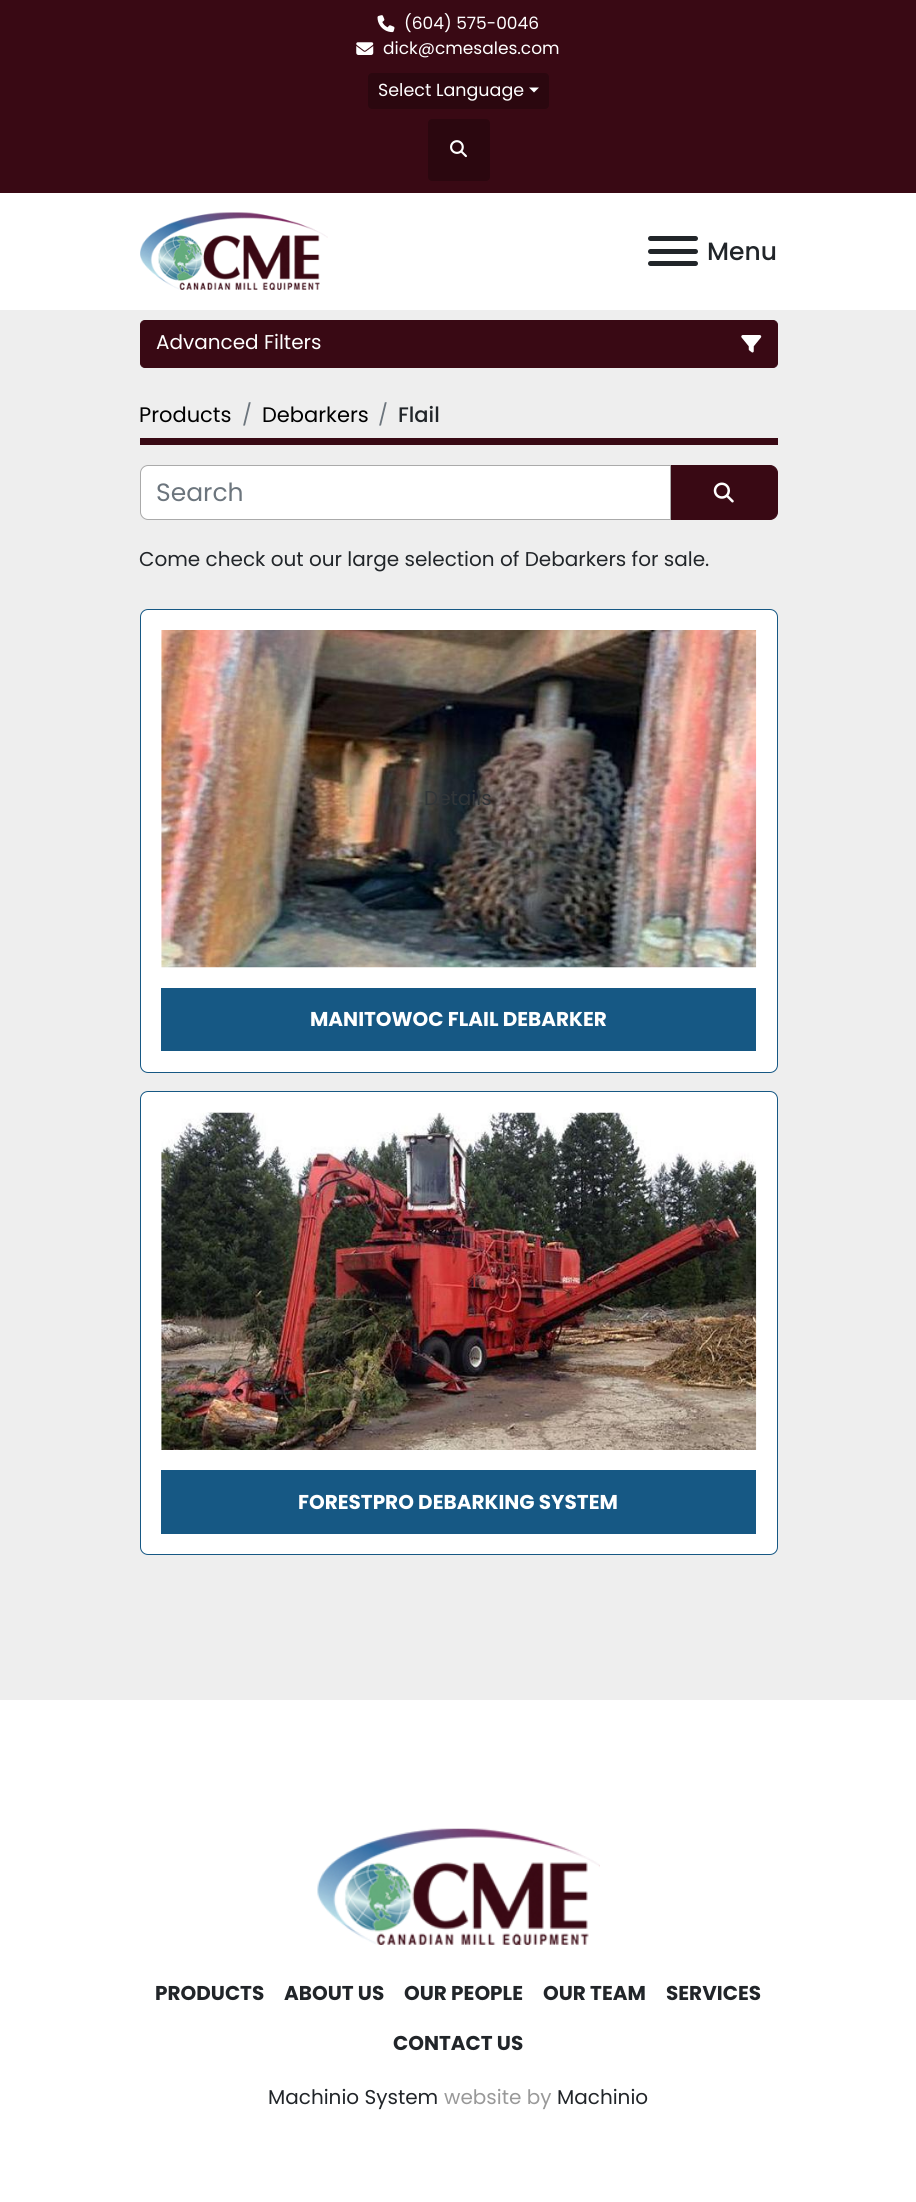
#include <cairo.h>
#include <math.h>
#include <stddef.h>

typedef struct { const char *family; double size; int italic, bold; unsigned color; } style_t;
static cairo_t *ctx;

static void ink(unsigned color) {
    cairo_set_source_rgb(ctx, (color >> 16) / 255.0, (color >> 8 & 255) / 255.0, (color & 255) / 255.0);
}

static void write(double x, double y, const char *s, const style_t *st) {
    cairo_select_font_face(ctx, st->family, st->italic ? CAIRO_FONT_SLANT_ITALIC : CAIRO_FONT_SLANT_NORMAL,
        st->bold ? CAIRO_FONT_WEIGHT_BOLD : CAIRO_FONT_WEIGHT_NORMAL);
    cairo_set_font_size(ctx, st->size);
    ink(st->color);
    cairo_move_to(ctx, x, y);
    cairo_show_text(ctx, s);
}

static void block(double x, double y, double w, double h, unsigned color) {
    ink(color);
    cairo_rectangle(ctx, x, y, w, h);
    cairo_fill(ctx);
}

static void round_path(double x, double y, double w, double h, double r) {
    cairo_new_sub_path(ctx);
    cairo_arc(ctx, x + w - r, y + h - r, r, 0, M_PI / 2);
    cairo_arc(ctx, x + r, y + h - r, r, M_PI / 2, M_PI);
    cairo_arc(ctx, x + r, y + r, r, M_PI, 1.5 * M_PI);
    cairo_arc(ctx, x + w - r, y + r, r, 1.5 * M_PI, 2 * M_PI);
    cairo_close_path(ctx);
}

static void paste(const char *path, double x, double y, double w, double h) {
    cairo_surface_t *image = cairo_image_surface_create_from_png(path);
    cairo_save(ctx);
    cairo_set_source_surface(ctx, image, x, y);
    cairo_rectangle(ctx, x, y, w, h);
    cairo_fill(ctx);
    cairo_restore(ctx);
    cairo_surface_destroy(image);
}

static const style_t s1 = {"Poppins", 17, 0, 0, 0xffffff};
static const style_t s2 = {"Poppins", 17.5, 0, 0, 0xffffff};
static const style_t s3 = {"Poppins Medium", 25, 0, 0, 0x212529};
static const style_t s4 = {"Poppins", 20, 0, 0, 0xffffff};
static const style_t s5 = {"Poppins", 21, 0, 0, 0x000000};
static const style_t s6 = {"Poppins", 21, 0, 0, 0x6c757d};
static const style_t s7 = {"Poppins Medium", 21, 0, 0, 0x212529};
static const style_t s8 = {"Poppins", 25, 0, 0, 0x6c757d};
static const style_t s9 = {"Poppins", 20, 0, 0, 0x212529};
static const style_t s10 = {"Poppins", 20, 0, 0, 0x313538};
static const style_t s11 = {"Poppins", 20, 0, 1, 0xffffff};
static const style_t s12 = {"Poppins", 20, 0, 0, 0xba3d3c};
static const style_t s13 = {"Poppins", 20, 0, 1, 0x212529};
static const style_t s14 = {"Poppins", 20, 0, 0, 0x999999};

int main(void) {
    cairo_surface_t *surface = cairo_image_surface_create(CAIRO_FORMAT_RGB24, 916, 2202);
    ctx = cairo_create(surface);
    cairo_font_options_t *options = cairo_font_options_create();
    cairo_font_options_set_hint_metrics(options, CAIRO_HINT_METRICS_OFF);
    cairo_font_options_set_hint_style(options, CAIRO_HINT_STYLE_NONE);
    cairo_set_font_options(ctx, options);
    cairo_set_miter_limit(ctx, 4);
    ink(0xeeeeee);
    cairo_paint(ctx);
    block(0, 0, 916, 193, 0x390914);
    paste("pic1.png", 377, 15, 18, 18);
    write(404, 29, "(604) 575-0046", &s1);
    paste("pic2.png", 356, 42, 18, 13);
    write(383, 54, "dick@cmesales.com", &s1);
    ink(0x2b070f);
    round_path(368, 73, 181, 36, 4);
    cairo_fill(ctx);
    write(378, 96, "Select Language", &s2);
    cairo_new_path(ctx);
    cairo_move_to(ctx, 529, 87.5);
    cairo_line_to(ctx, 539, 87.5);
    cairo_line_to(ctx, 534, 92.5);
    cairo_close_path(ctx);
    cairo_fill(ctx);
    ink(0x2b070f);
    round_path(428, 119, 62, 62, 4);
    cairo_fill(ctx);
    paste("pic3.png", 450, 140, 17, 18);
    block(0, 193, 916, 117, 0xffffff);
    paste("pic4.png", 140, 212, 188, 78);
    ink(0x212529);
    round_path(648, 249, 50, 5, 2.5);
    cairo_fill(ctx);
    round_path(648, 236, 50, 5, 2.5);
    cairo_fill(ctx);
    round_path(648, 261, 50, 5, 2.5);
    cairo_fill(ctx);
    write(707, 260, "Menu", &s3);
    ink(0x390914);
    round_path(140.5, 320.5, 637, 47, 4.5);
    cairo_fill_preserve(ctx);
    cairo_set_line_width(ctx, 1);
    cairo_stroke(ctx);
    write(156, 349, "Advanced Filters", &s4);
    paste("pic5.png", 741, 335, 21, 18);
    block(140, 438, 638, 7, 0x390914);
    write(139, 422, "Products", &s5);
    write(242, 422, "/", &s6);
    write(262, 422, "Debarkers", &s5);
    write(378, 422, "/", &s6);
    write(398, 422, "Flail", &s7);
    ink(0xffffff);
    cairo_new_path(ctx);
    cairo_move_to(ctx, 147, 466);
    cairo_line_to(ctx, 670, 466);
    cairo_line_to(ctx, 670, 519);
    cairo_line_to(ctx, 147, 519);
    cairo_curve_to(ctx, 143.5, 519, 141, 516.5, 141, 513);
    cairo_line_to(ctx, 141, 472);
    cairo_curve_to(ctx, 141, 468.5, 143.5, 466, 147, 466);
    cairo_close_path(ctx);
    cairo_fill(ctx);
    cairo_new_path(ctx);
    cairo_move_to(ctx, 148, 465.5);
    cairo_line_to(ctx, 670.5, 465.5);
    cairo_line_to(ctx, 670.5, 519.5);
    cairo_line_to(ctx, 148, 519.5);
    cairo_curve_to(ctx, 144, 519.5, 140.5, 516, 140.5, 512);
    cairo_line_to(ctx, 140.5, 473);
    cairo_curve_to(ctx, 140.5, 469, 144, 465.5, 148, 465.5);
    cairo_close_path(ctx);
    ink(0xaaaaaa);
    cairo_stroke(ctx);
    write(156, 501, "Search", &s8);
    ink(0x390914);
    cairo_new_path(ctx);
    cairo_move_to(ctx, 671.5, 465.5);
    cairo_line_to(ctx, 770, 465.5);
    cairo_curve_to(ctx, 774, 465.5, 777.5, 469, 777.5, 473);
    cairo_line_to(ctx, 777.5, 512);
    cairo_curve_to(ctx, 777.5, 516, 774, 519.5, 770, 519.5);
    cairo_line_to(ctx, 671.5, 519.5);
    cairo_close_path(ctx);
    cairo_fill_preserve(ctx);
    cairo_stroke(ctx);
    paste("pic6.png", 713, 482, 21, 21);
    write(139, 566, "Come check out our large selection of Debarkers for sale.", &s9);
    ink(0xffffff);
    round_path(140.5, 609.5, 637, 463, 7.5);
    cairo_fill_preserve(ctx);
    ink(0x165884);
    cairo_stroke(ctx);
    paste("pic7.png", 161, 630, 596, 338);
    write(424, 805, "Details", &s10);
    block(161, 988, 595, 63, 0x165884);
    write(310, 1026, "MANITOWOC FLAIL DEBARKER", &s11);
    round_path(140.5, 1091.5, 637, 463, 7.5);
    cairo_fill_preserve(ctx);
    ink(0x165884);
    cairo_stroke(ctx);
    paste("pic8.png", 161, 1112, 596, 338);
    write(472, 1287, "i", &s12);
    block(161, 1470, 595, 64, 0x165884);
    write(298, 1509, "FORESTPRO DEBARKING SYSTEM", &s11);
    block(0, 1700, 916, 502, 0xffffff);
    paste("pic9.png", 317, 1828, 283, 117);
    write(155, 2000, "PRODUCTS", &s13);
    write(284, 2000, "ABOUT US", &s13);
    write(404, 2000, "OUR PEOPLE", &s13);
    write(543, 2000, "OUR TEAM", &s13);
    write(666, 2000, "SERVICES", &s13);
    write(393, 2050, "CONTACT US", &s13);
    write(268, 2104, "Machinio System", &s9);
    write(444, 2104, "website by", &s14);
    write(557, 2104, "Machinio", &s9);
    cairo_surface_write_to_png(surface, "screenshot.png");
    cairo_font_options_destroy(options);
    cairo_destroy(ctx);
    cairo_surface_destroy(surface);
    return 0;
}
